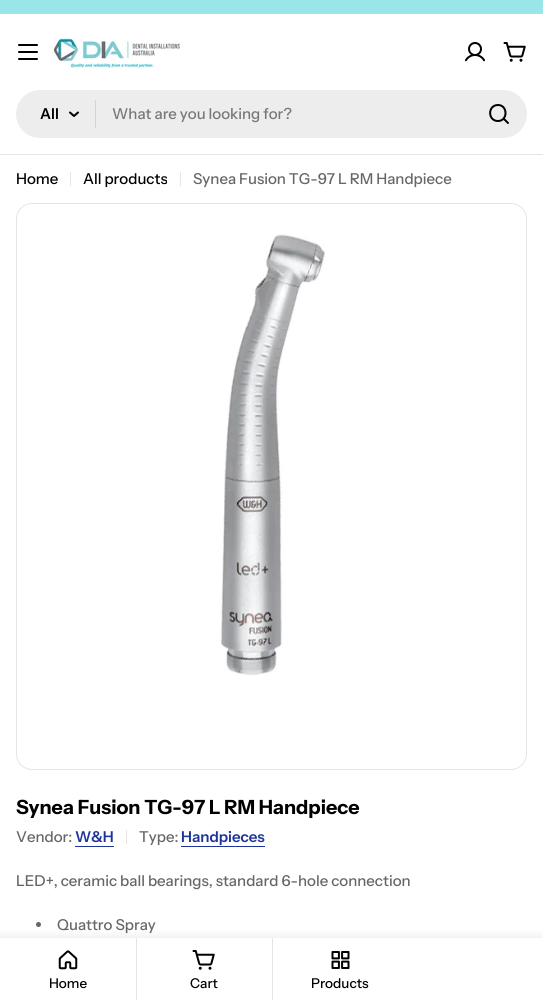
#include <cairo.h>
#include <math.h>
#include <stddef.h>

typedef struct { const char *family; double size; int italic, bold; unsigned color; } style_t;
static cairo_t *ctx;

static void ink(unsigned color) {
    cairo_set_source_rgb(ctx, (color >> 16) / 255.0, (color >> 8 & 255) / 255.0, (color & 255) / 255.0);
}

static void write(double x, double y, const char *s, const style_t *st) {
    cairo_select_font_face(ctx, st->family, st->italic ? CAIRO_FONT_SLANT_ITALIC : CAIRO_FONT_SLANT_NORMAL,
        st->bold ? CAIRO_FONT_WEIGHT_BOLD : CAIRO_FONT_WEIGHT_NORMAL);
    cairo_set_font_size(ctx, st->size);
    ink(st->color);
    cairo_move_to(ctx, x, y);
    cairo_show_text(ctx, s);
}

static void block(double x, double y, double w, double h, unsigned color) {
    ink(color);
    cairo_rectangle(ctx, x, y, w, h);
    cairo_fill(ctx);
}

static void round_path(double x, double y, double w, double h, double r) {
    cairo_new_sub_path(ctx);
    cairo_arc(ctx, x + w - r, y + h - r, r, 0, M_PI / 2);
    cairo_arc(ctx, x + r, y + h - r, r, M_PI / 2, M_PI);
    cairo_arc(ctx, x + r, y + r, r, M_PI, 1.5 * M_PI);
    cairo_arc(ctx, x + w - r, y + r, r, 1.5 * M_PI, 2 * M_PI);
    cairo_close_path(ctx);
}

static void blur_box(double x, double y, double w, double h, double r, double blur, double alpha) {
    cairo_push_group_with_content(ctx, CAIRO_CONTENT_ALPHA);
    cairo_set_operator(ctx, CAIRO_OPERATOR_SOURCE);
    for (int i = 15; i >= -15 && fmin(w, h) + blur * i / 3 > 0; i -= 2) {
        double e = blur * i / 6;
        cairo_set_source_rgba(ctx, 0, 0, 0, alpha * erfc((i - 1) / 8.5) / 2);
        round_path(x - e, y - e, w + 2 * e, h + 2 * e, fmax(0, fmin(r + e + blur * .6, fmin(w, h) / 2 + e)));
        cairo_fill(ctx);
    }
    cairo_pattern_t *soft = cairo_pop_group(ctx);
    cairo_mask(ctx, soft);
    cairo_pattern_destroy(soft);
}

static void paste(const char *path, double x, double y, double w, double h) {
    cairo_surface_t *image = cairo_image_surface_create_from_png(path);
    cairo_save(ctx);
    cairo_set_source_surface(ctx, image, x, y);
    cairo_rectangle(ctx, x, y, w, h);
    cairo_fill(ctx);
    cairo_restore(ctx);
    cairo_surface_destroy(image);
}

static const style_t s1 = {"Instrument Sans SemiBold", 15, 0, 0, 0x000000};
static const style_t s2 = {"Instrument Sans Medium", 15, 0, 0, 0x777777};
static const style_t s3 = {"Instrument Sans Medium", 15, 0, 0, 0x000000};
static const style_t s4 = {"Instrument Sans Medium", 15, 0, 0, 0x666666};
static const style_t s5 = {"Instrument Sans", 19.6, 0, 1, 0x000000};
static const style_t s6 = {"Instrument Sans SemiBold", 15, 0, 0, 0x1d349a};
static const style_t s7 = {"Instrument Sans Medium", 13.5, 0, 0, 0x000000};

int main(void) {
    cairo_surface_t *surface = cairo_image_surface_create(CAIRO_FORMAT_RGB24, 543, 1000);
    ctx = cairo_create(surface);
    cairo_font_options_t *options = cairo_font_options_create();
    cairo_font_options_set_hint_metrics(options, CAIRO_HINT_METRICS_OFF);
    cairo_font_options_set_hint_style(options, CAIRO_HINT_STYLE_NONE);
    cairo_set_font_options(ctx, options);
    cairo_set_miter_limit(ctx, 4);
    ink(0xffffff);
    cairo_paint(ctx);
    block(0, 0, 543, 14, 0x99e6e9);
    ink(0x000000);
    round_path(18, 51, 20, 2, 1);
    cairo_fill(ctx);
    round_path(18, 44, 20, 2, 1);
    cairo_fill(ctx);
    round_path(18, 58, 20, 2, 1);
    cairo_fill(ctx);
    paste("pic1.png", 52, 37, 128, 33);
    paste("pic2.png", 464, 42, 22, 20);
    paste("pic3.png", 503, 42, 23, 20);
    ink(0xededed);
    round_path(16, 90, 511, 48, 24);
    cairo_fill(ctx);
    write(40, 119, "All", &s1);
    cairo_new_path(ctx);
    cairo_move_to(ctx, 78, 112.5);
    cairo_line_to(ctx, 74, 116);
    cairo_line_to(ctx, 70, 112.5);
    cairo_set_line_cap(ctx, CAIRO_LINE_CAP_ROUND);
    cairo_set_line_join(ctx, CAIRO_LINE_JOIN_ROUND);
    cairo_stroke(ctx);
    block(95, 100, 1, 28, 0xd5d5d5);
    write(112, 119, "What are you looking for?", &s2);
    cairo_new_path(ctx);
    cairo_move_to(ctx, 498, 121);
    cairo_curve_to(ctx, 508, 121, 508, 105, 498, 105);
    cairo_curve_to(ctx, 487.5, 105, 487.5, 121, 498, 121);
    cairo_close_path(ctx);
    cairo_move_to(ctx, 503.5, 118.5);
    cairo_line_to(ctx, 508, 123);
    ink(0x000000);
    cairo_stroke(ctx);
    block(0, 154, 543, 1, 0xe5e5e5);
    write(16, 184, "Home", &s3);
    block(70, 172, 1, 14, 0xe6e6e6);
    write(83, 184, "All products", &s3);
    block(180, 172, 1, 14, 0xe6e6e6);
    write(193, 184, "Synea Fusion TG-97 L RM Handpiece", &s4);
    paste("pic4.png", 220, 234, 106, 442);
    round_path(16.5, 203.5, 510, 566, 15.5);
    ink(0xe5e5e5);
    cairo_set_line_width(ctx, 1);
    cairo_set_line_cap(ctx, CAIRO_LINE_CAP_BUTT);
    cairo_set_line_join(ctx, CAIRO_LINE_JOIN_MITER);
    cairo_stroke(ctx);
    write(16, 814, "Synea Fusion TG-97 L RM Handpiece", &s5);
    write(16, 842, "Vendor:", &s4);
    write(75, 842, "W&H", &s6);
    block(75, 846, 39, 1, 0x1d349a);
    block(126, 830, 1, 14, 0xe5e5e5);
    write(139, 842, "Type:", &s4);
    write(181, 842, "Handpieces", &s6);
    block(181, 846, 84, 1, 0x1d349a);
    write(16, 886, "LED+, ceramic ball bearings, standard 6-hole connection", &s4);
    cairo_new_path(ctx);
    cairo_arc(ctx, 38.5, 924.5, 2.5, 0, 2 * M_PI);
    cairo_fill(ctx);
    write(57, 930, "Quattro Spray", &s4);
    ink(0x000000);
    blur_box(-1, 936, 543, 62, 0, 5, 0.08);
    block(0, 938, 543, 62, 0xffffff);
    paste("pic5.png", 58, 950, 20, 20);
    write(49, 988, "Home", &s7);
    block(136, 938, 1, 62, 0xe5e5e5);
    paste("pic3.png", 192, 950, 23, 20);
    write(190, 988, "Cart", &s7);
    block(272, 938, 1, 62, 0xe5e5e5);
    paste("pic6.png", 331, 951, 19, 18);
    write(311, 988, "Products", &s7);
    cairo_surface_write_to_png(surface, "screenshot.png");
    cairo_font_options_destroy(options);
    cairo_destroy(ctx);
    cairo_surface_destroy(surface);
    return 0;
}
